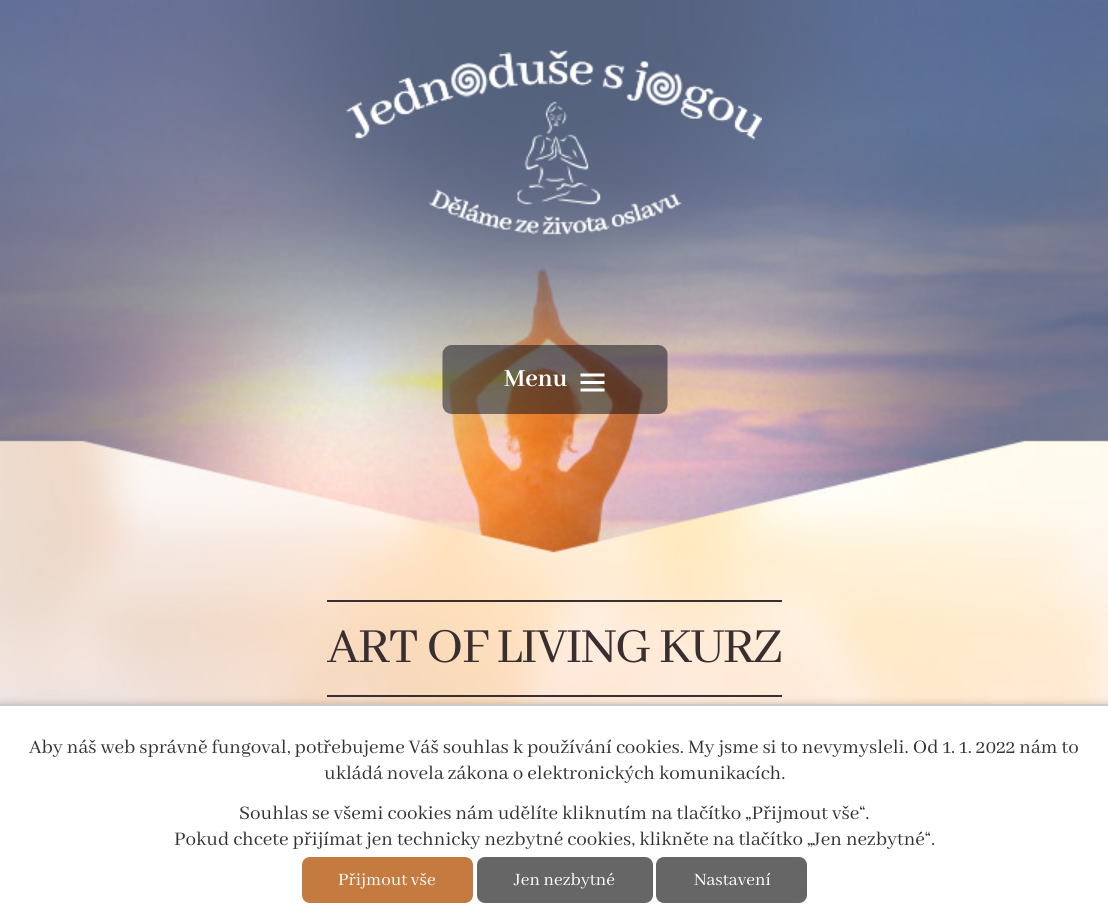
#include <cairo.h>
#include <math.h>
#include <stddef.h>

typedef struct { const char *family; double size; int italic, bold; unsigned color; } style_t;
static cairo_t *ctx;

static void ink(unsigned color) {
    cairo_set_source_rgb(ctx, (color >> 16) / 255.0, (color >> 8 & 255) / 255.0, (color & 255) / 255.0);
}

static void write(double x, double y, const char *s, const style_t *st) {
    cairo_select_font_face(ctx, st->family, st->italic ? CAIRO_FONT_SLANT_ITALIC : CAIRO_FONT_SLANT_NORMAL,
        st->bold ? CAIRO_FONT_WEIGHT_BOLD : CAIRO_FONT_WEIGHT_NORMAL);
    cairo_set_font_size(ctx, st->size);
    ink(st->color);
    cairo_move_to(ctx, x, y);
    cairo_show_text(ctx, s);
}

static void write_spaced(double x, double y, const char *s, double letter, double word) {
    cairo_move_to(ctx, x, y);
    while (*s) {
        char ch[5] = {0};
        int n = 0;
        do ch[n++] = *s++; while ((*s & 0xC0) == 0x80);
        cairo_show_text(ctx, ch);
        cairo_rel_move_to(ctx, letter + word * (*ch == ' '), 0);
    }
}

static void block(double x, double y, double w, double h, unsigned color) {
    ink(color);
    cairo_rectangle(ctx, x, y, w, h);
    cairo_fill(ctx);
}

static void round_path(double x, double y, double w, double h, double r) {
    cairo_new_sub_path(ctx);
    cairo_arc(ctx, x + w - r, y + h - r, r, 0, M_PI / 2);
    cairo_arc(ctx, x + r, y + h - r, r, M_PI / 2, M_PI);
    cairo_arc(ctx, x + r, y + r, r, M_PI, 1.5 * M_PI);
    cairo_arc(ctx, x + w - r, y + r, r, 1.5 * M_PI, 2 * M_PI);
    cairo_close_path(ctx);
}

static void blur_box(double x, double y, double w, double h, double r, double blur, double alpha) {
    cairo_push_group_with_content(ctx, CAIRO_CONTENT_ALPHA);
    cairo_set_operator(ctx, CAIRO_OPERATOR_SOURCE);
    for (int i = 15; i >= -15 && fmin(w, h) + blur * i / 3 > 0; i -= 2) {
        double e = blur * i / 6;
        cairo_set_source_rgba(ctx, 0, 0, 0, alpha * erfc((i - 1) / 8.5) / 2);
        round_path(x - e, y - e, w + 2 * e, h + 2 * e, fmax(0, fmin(r + e + blur * .6, fmin(w, h) / 2 + e)));
        cairo_fill(ctx);
    }
    cairo_pattern_t *soft = cairo_pop_group(ctx);
    cairo_mask(ctx, soft);
    cairo_pattern_destroy(soft);
}

static void paste(const char *path, double x, double y, double w, double h) {
    cairo_surface_t *image = cairo_image_surface_create_from_png(path);
    cairo_save(ctx);
    cairo_set_source_surface(ctx, image, x, y);
    cairo_rectangle(ctx, x, y, w, h);
    cairo_fill(ctx);
    cairo_restore(ctx);
    cairo_surface_destroy(image);
}

static const style_t s1 = {"Abhaya Libre", 27, 0, 1, 0xffffff};
static const style_t s2 = {"Abhaya Libre", 21, 0, 0, 0x333333};
static const style_t s3 = {"Abhaya Libre", 19, 0, 0, 0xffffff};

int main(void) {
    cairo_surface_t *surface = cairo_image_surface_create(CAIRO_FORMAT_RGB24, 1108, 907);
    ctx = cairo_create(surface);
    cairo_font_options_t *options = cairo_font_options_create();
    cairo_font_options_set_hint_metrics(options, CAIRO_HINT_METRICS_OFF);
    cairo_font_options_set_hint_style(options, CAIRO_HINT_STYLE_NONE);
    cairo_set_font_options(ctx, options);
    cairo_set_miter_limit(ctx, 4);
    ink(0xffffff);
    cairo_paint(ctx);
    paste("pic1.png", 0, 0, 1108, 704);
    paste("pic2.png", 346, 49, 416, 186);
    paste("pic3.png", 442, 345, 226, 69);
    write(504, 386, "Menu", &s1);
    paste("pic4.png", 580, 373, 25, 19);
    block(327, 600, 455, 2, 0x392f31);
    block(327, 695, 455, 2, 0x392f31);
    cairo_select_font_face(ctx, "Abhaya Libre", CAIRO_FONT_SLANT_NORMAL, CAIRO_FONT_WEIGHT_NORMAL);
    cairo_set_font_size(ctx, 54);
    write_spaced(327, 662, "ART OF LIVING KURZ", -1.5, 0);
    ink(0x000000);
    blur_box(0, 704, 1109, 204, 0, 4, 0.2);
    block(0, 706, 1108, 201, 0xffffff);
    block(0, 704, 1108, 2, 0xcccccc);
    write(29, 753, "Aby náš web správně fungoval, potřebujeme Váš souhlas k používání cookies. My jsme si to nevymysleli. Od 1. 1. 2022 nám to", &s2);
    write(324, 779, "ukládá novela zákona o elektronických komunikacích.", &s2);
    write(239, 819, "Souhlas se všemi cookies nám udělíte kliknutím na tlačítko „Přijmout vše“.", &s2);
    write(174, 845, "Pokud chcete přijímat jen technicky nezbytné cookies, klikněte na tlačítko „Jen nezbytné“.", &s2);
    ink(0xc57b40);
    round_path(302, 857, 171, 46, 8);
    cairo_fill(ctx);
    write(338, 885, "Přijmout vše", &s3);
    ink(0x666666);
    round_path(477, 857, 176, 46, 8);
    cairo_fill(ctx);
    write(514, 885, "Jen nezbytné", &s3);
    ink(0x666666);
    round_path(656, 857, 151, 46, 8);
    cairo_fill(ctx);
    write(694, 885, "Nastavení", &s3);
    cairo_surface_write_to_png(surface, "screenshot.png");
    cairo_font_options_destroy(options);
    cairo_destroy(ctx);
    cairo_surface_destroy(surface);
    return 0;
}
